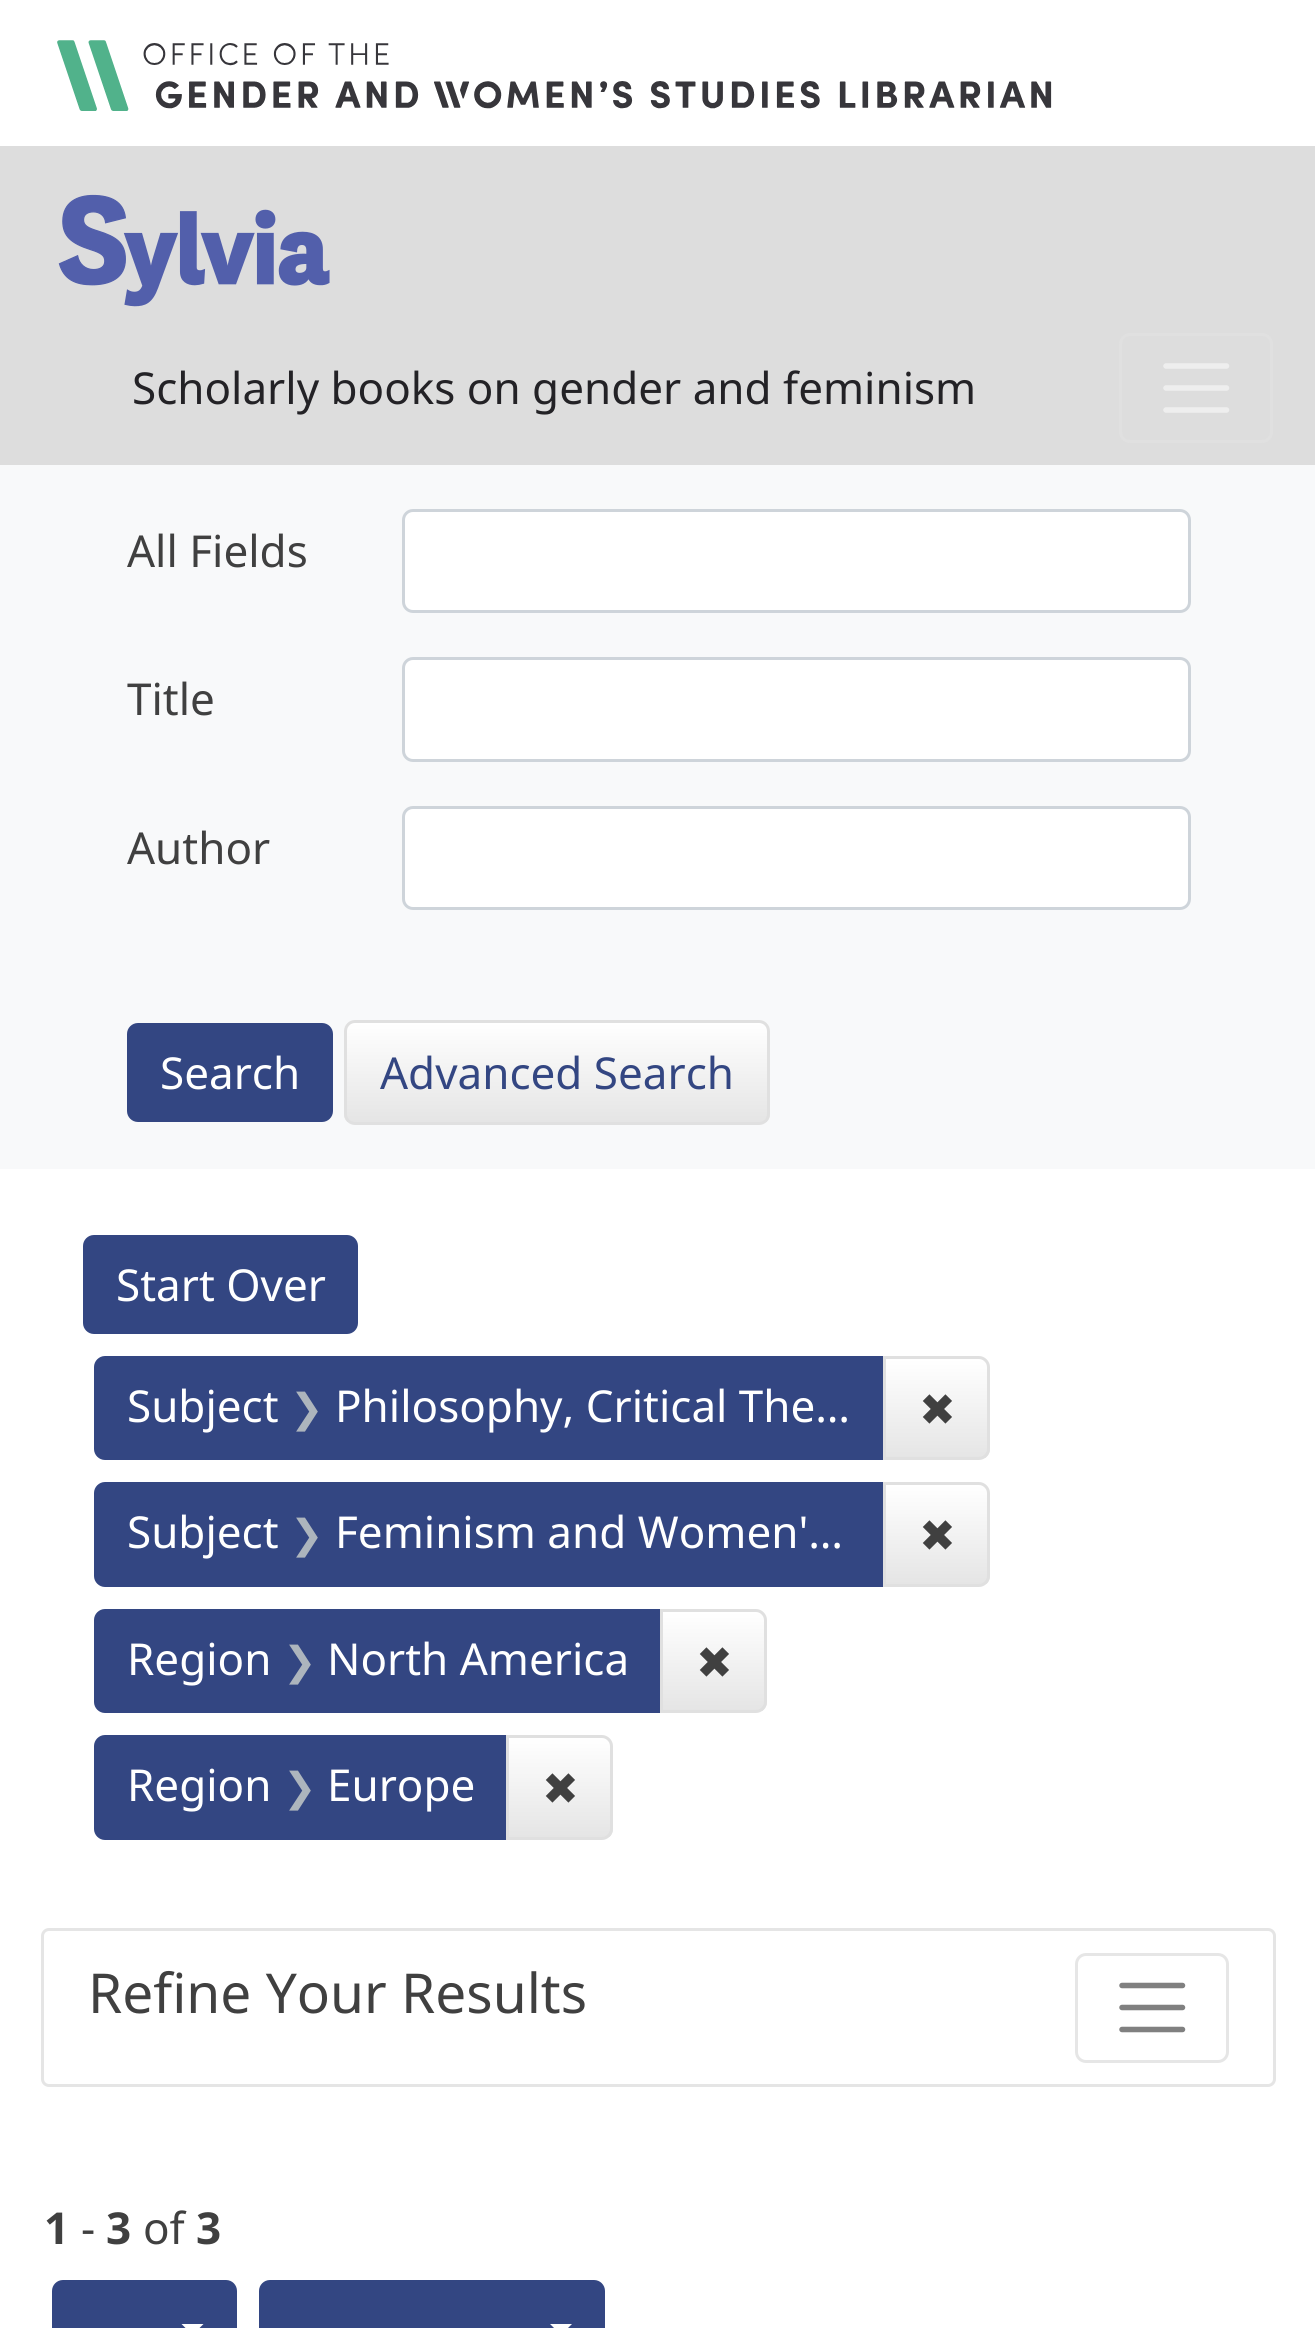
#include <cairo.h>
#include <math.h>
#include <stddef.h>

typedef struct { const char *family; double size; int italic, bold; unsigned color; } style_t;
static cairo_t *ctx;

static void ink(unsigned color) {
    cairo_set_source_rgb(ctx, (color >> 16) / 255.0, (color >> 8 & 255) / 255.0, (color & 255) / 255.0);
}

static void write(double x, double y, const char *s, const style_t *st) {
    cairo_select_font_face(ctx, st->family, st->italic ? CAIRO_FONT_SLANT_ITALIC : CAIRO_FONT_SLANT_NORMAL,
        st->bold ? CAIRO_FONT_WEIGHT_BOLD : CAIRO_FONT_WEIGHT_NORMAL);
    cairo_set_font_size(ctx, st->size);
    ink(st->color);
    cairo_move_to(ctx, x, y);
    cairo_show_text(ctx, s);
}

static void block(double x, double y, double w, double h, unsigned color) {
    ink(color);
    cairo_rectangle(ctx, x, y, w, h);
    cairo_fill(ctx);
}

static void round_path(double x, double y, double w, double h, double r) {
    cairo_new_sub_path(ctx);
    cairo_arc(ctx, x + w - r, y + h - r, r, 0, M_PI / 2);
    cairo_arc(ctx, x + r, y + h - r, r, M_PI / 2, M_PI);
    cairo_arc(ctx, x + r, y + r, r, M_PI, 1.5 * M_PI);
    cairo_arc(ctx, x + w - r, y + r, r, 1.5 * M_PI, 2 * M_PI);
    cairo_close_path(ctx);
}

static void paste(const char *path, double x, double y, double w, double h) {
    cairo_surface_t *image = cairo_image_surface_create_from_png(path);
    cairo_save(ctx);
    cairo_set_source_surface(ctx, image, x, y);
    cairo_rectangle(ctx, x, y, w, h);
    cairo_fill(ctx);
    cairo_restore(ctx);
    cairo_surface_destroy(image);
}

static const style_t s1 = {"Noto Sans", 44, 0, 0, 0x232226};
static const style_t s2 = {"Noto Sans", 44, 0, 0, 0x404040};
static const style_t s3 = {"Noto Sans", 44, 0, 0, 0xffffff};
static const style_t s4 = {"Noto Sans", 44, 0, 0, 0x334682};
static const style_t s5 = {"DejaVu Sans", 40, 0, 0, 0xadb5bd};
static const style_t s6 = {"DejaVu Sans", 44, 0, 0, 0x404040};
static const style_t s7 = {"Noto Sans", 55, 0, 0, 0x404040};
static const style_t s8 = {"Noto Sans", 44, 0, 1, 0x404040};

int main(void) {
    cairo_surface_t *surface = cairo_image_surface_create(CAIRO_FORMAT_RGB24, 1315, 2328);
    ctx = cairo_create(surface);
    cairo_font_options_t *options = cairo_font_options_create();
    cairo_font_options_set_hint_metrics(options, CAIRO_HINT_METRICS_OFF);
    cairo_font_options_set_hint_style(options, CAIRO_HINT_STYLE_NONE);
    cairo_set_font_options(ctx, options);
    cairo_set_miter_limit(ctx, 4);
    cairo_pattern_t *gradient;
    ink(0xffffff);
    cairo_paint(ctx);
    paste("pic1.png", 57, 40, 995, 71);
    block(0, 146, 1315, 319, 0xdddddd);
    paste("pic2.png", 58, 194, 272, 113);
    write(132, 404, "Scholarly books on gender and feminism", &s1);
    round_path(1120.5, 334.5, 151, 107, 9.5);
    ink(0xe0e0e0);
    cairo_set_line_width(ctx, 3);
    cairo_stroke(ctx);
    cairo_new_path(ctx);
    cairo_move_to(ctx, 1166, 366);
    cairo_line_to(ctx, 1226.5, 366);
    cairo_move_to(ctx, 1166, 388);
    cairo_line_to(ctx, 1226.5, 388);
    cairo_move_to(ctx, 1166, 410);
    cairo_line_to(ctx, 1226.5, 410);
    ink(0xeeeeee);
    cairo_set_line_width(ctx, 5.5);
    cairo_set_line_cap(ctx, CAIRO_LINE_CAP_ROUND);
    cairo_stroke(ctx);
    block(0, 465, 1315, 704, 0xf8f9fa);
    write(127, 567, "All Fields", &s2);
    ink(0xffffff);
    round_path(403.5, 510.5, 786, 101, 9.5);
    cairo_fill_preserve(ctx);
    ink(0xced4da);
    cairo_set_line_width(ctx, 3);
    cairo_set_line_cap(ctx, CAIRO_LINE_CAP_BUTT);
    cairo_stroke(ctx);
    write(127, 715, "Title", &s2);
    ink(0xffffff);
    round_path(403.5, 658.5, 786, 102, 9.5);
    cairo_fill_preserve(ctx);
    ink(0xced4da);
    cairo_stroke(ctx);
    write(127, 864, "Author", &s2);
    ink(0xffffff);
    round_path(403.5, 807.5, 786, 101, 9.5);
    cairo_fill_preserve(ctx);
    ink(0xced4da);
    cairo_stroke(ctx);
    ink(0x334682);
    round_path(127, 1023, 206, 99, 11);
    cairo_fill(ctx);
    write(160, 1089, "Search", &s3);
    cairo_save(ctx);
    round_path(344, 1020, 426, 105, 11);
    cairo_clip(ctx);
    gradient = cairo_pattern_create_linear(557, 1023, 557, 1122);
    cairo_pattern_add_color_stop_rgba(gradient, 0, 1, 1, 1, 1);
    cairo_pattern_add_color_stop_rgba(gradient, 1, 0.898, 0.898, 0.898, 1);
    cairo_set_source(ctx, gradient);
    cairo_pattern_destroy(gradient);
    cairo_rectangle(ctx, 344, 1023, 426, 99);
    cairo_fill(ctx);
    cairo_restore(ctx);
    round_path(345.5, 1021.5, 423, 102, 9.5);
    ink(0xe0e0e0);
    cairo_stroke(ctx);
    write(380, 1089, "Advanced Search", &s4);
    round_path(83, 1235, 275, 99, 11);
    cairo_fill(ctx);
    write(116, 1301, "Start Over", &s3);
    ink(0x334682);
    cairo_new_path(ctx);
    cairo_move_to(ctx, 105, 1356);
    cairo_line_to(ctx, 886, 1356);
    cairo_line_to(ctx, 886, 1460);
    cairo_line_to(ctx, 105, 1460);
    cairo_curve_to(ctx, 99, 1460, 94, 1455, 94, 1449);
    cairo_line_to(ctx, 94, 1367);
    cairo_curve_to(ctx, 94, 1361, 99, 1356, 105, 1356);
    cairo_close_path(ctx);
    cairo_fill(ctx);
    write(127, 1422, "Subject", &s3);
    write(290, 1422, "❯", &s5);
    write(335, 1422, "Philosophy, Critical The…", &s3);
    cairo_save(ctx);
    cairo_new_path(ctx);
    cairo_move_to(ctx, 883, 1356);
    cairo_line_to(ctx, 979, 1356);
    cairo_curve_to(ctx, 985, 1356, 990, 1361, 990, 1367);
    cairo_line_to(ctx, 990, 1449);
    cairo_curve_to(ctx, 990, 1455, 985, 1460, 979, 1460);
    cairo_line_to(ctx, 883, 1460);
    cairo_close_path(ctx);
    cairo_clip(ctx);
    gradient = cairo_pattern_create_linear(936, 1359, 936, 1458);
    cairo_pattern_add_color_stop_rgba(gradient, 0, 1, 1, 1, 1);
    cairo_pattern_add_color_stop_rgba(gradient, 1, 0.898, 0.898, 0.898, 1);
    cairo_set_source(ctx, gradient);
    cairo_pattern_destroy(gradient);
    cairo_rectangle(ctx, 886, 1359, 104, 99);
    cairo_fill(ctx);
    cairo_restore(ctx);
    cairo_new_path(ctx);
    cairo_move_to(ctx, 884.5, 1357.5);
    cairo_line_to(ctx, 979, 1357.5);
    cairo_curve_to(ctx, 984, 1357.5, 988.5, 1362, 988.5, 1367);
    cairo_line_to(ctx, 988.5, 1449);
    cairo_curve_to(ctx, 988.5, 1454, 984, 1458.5, 979, 1458.5);
    cairo_line_to(ctx, 884.5, 1458.5);
    cairo_close_path(ctx);
    ink(0xe0e0e0);
    cairo_stroke(ctx);
    write(919, 1425, "✖", &s6);
    ink(0x334682);
    cairo_new_path(ctx);
    cairo_move_to(ctx, 105, 1482);
    cairo_line_to(ctx, 886, 1482);
    cairo_line_to(ctx, 886, 1587);
    cairo_line_to(ctx, 105, 1587);
    cairo_curve_to(ctx, 99, 1587, 94, 1582, 94, 1576);
    cairo_line_to(ctx, 94, 1493);
    cairo_curve_to(ctx, 94, 1487, 99, 1482, 105, 1482);
    cairo_close_path(ctx);
    cairo_fill(ctx);
    write(127, 1548, "Subject", &s3);
    write(290, 1548, "❯", &s5);
    write(335, 1548, "Feminism and Women'…", &s3);
    cairo_save(ctx);
    cairo_new_path(ctx);
    cairo_move_to(ctx, 883, 1482);
    cairo_line_to(ctx, 979, 1482);
    cairo_curve_to(ctx, 985, 1482, 990, 1487, 990, 1493);
    cairo_line_to(ctx, 990, 1576);
    cairo_curve_to(ctx, 990, 1582, 985, 1587, 979, 1587);
    cairo_line_to(ctx, 883, 1587);
    cairo_close_path(ctx);
    cairo_clip(ctx);
    gradient = cairo_pattern_create_linear(936, 1485, 936, 1584);
    cairo_pattern_add_color_stop_rgba(gradient, 0, 1, 1, 1, 1);
    cairo_pattern_add_color_stop_rgba(gradient, 1, 0.898, 0.898, 0.898, 1);
    cairo_set_source(ctx, gradient);
    cairo_pattern_destroy(gradient);
    cairo_rectangle(ctx, 886, 1485, 104, 99);
    cairo_fill(ctx);
    cairo_restore(ctx);
    cairo_new_path(ctx);
    cairo_move_to(ctx, 884.5, 1483.5);
    cairo_line_to(ctx, 979, 1483.5);
    cairo_curve_to(ctx, 984, 1483.5, 988.5, 1488, 988.5, 1493);
    cairo_line_to(ctx, 988.5, 1576);
    cairo_curve_to(ctx, 988.5, 1581, 984, 1585.5, 979, 1585.5);
    cairo_line_to(ctx, 884.5, 1585.5);
    cairo_close_path(ctx);
    ink(0xe0e0e0);
    cairo_stroke(ctx);
    write(919, 1551, "✖", &s6);
    ink(0x334682);
    cairo_new_path(ctx);
    cairo_move_to(ctx, 105, 1609);
    cairo_line_to(ctx, 663, 1609);
    cairo_line_to(ctx, 663, 1713);
    cairo_line_to(ctx, 105, 1713);
    cairo_curve_to(ctx, 99, 1713, 94, 1708, 94, 1702);
    cairo_line_to(ctx, 94, 1620);
    cairo_curve_to(ctx, 94, 1614, 99, 1609, 105, 1609);
    cairo_close_path(ctx);
    cairo_fill(ctx);
    write(127, 1675, "Region", &s3);
    write(283, 1675, "❯", &s5);
    write(327, 1675, "North America", &s3);
    cairo_save(ctx);
    cairo_new_path(ctx);
    cairo_move_to(ctx, 660, 1609);
    cairo_line_to(ctx, 756, 1609);
    cairo_curve_to(ctx, 762, 1609, 767, 1614, 767, 1620);
    cairo_line_to(ctx, 767, 1702);
    cairo_curve_to(ctx, 767, 1708, 762, 1713, 756, 1713);
    cairo_line_to(ctx, 660, 1713);
    cairo_close_path(ctx);
    cairo_clip(ctx);
    gradient = cairo_pattern_create_linear(714, 1612, 714, 1711);
    cairo_pattern_add_color_stop_rgba(gradient, 0, 1, 1, 1, 1);
    cairo_pattern_add_color_stop_rgba(gradient, 1, 0.898, 0.898, 0.898, 1);
    cairo_set_source(ctx, gradient);
    cairo_pattern_destroy(gradient);
    cairo_rectangle(ctx, 663, 1612, 104, 99);
    cairo_fill(ctx);
    cairo_restore(ctx);
    cairo_new_path(ctx);
    cairo_move_to(ctx, 661.5, 1610.5);
    cairo_line_to(ctx, 756, 1610.5);
    cairo_curve_to(ctx, 761, 1610.5, 765.5, 1615, 765.5, 1620);
    cairo_line_to(ctx, 765.5, 1702);
    cairo_curve_to(ctx, 765.5, 1707, 761, 1711.5, 756, 1711.5);
    cairo_line_to(ctx, 661.5, 1711.5);
    cairo_close_path(ctx);
    ink(0xe0e0e0);
    cairo_stroke(ctx);
    write(696, 1678, "✖", &s6);
    ink(0x334682);
    cairo_new_path(ctx);
    cairo_move_to(ctx, 105, 1735);
    cairo_line_to(ctx, 509, 1735);
    cairo_line_to(ctx, 509, 1840);
    cairo_line_to(ctx, 105, 1840);
    cairo_curve_to(ctx, 99, 1840, 94, 1835, 94, 1829);
    cairo_line_to(ctx, 94, 1746);
    cairo_curve_to(ctx, 94, 1740, 99, 1735, 105, 1735);
    cairo_close_path(ctx);
    cairo_fill(ctx);
    write(127, 1801, "Region", &s3);
    write(283, 1801, "❯", &s5);
    write(327, 1801, "Europe", &s3);
    cairo_save(ctx);
    cairo_new_path(ctx);
    cairo_move_to(ctx, 506, 1735);
    cairo_line_to(ctx, 602, 1735);
    cairo_curve_to(ctx, 608, 1735, 613, 1740, 613, 1746);
    cairo_line_to(ctx, 613, 1829);
    cairo_curve_to(ctx, 613, 1835, 608, 1840, 602, 1840);
    cairo_line_to(ctx, 506, 1840);
    cairo_close_path(ctx);
    cairo_clip(ctx);
    gradient = cairo_pattern_create_linear(560, 1738, 560, 1837);
    cairo_pattern_add_color_stop_rgba(gradient, 0, 1, 1, 1, 1);
    cairo_pattern_add_color_stop_rgba(gradient, 1, 0.898, 0.898, 0.898, 1);
    cairo_set_source(ctx, gradient);
    cairo_pattern_destroy(gradient);
    cairo_rectangle(ctx, 509, 1738, 104, 99);
    cairo_fill(ctx);
    cairo_restore(ctx);
    cairo_new_path(ctx);
    cairo_move_to(ctx, 507.5, 1736.5);
    cairo_line_to(ctx, 602, 1736.5);
    cairo_curve_to(ctx, 607, 1736.5, 611.5, 1741, 611.5, 1746);
    cairo_line_to(ctx, 611.5, 1829);
    cairo_curve_to(ctx, 611.5, 1834, 607, 1838.5, 602, 1838.5);
    cairo_line_to(ctx, 507.5, 1838.5);
    cairo_close_path(ctx);
    ink(0xe0e0e0);
    cairo_stroke(ctx);
    write(542, 1804, "✖", &s6);
    round_path(42.5, 1929.5, 1232, 156, 6.5);
    ink(0xe5e5e5);
    cairo_stroke(ctx);
    write(88, 2013, "Refine Your Results", &s7);
    round_path(1076.5, 1954.5, 151, 107, 9.5);
    ink(0xe6e6e6);
    cairo_stroke(ctx);
    cairo_new_path(ctx);
    cairo_move_to(ctx, 1122, 1985.5);
    cairo_line_to(ctx, 1182.5, 1985.5);
    cairo_move_to(ctx, 1122, 2007.5);
    cairo_line_to(ctx, 1182.5, 2007.5);
    cairo_move_to(ctx, 1122, 2029.5);
    cairo_line_to(ctx, 1182.5, 2029.5);
    ink(0x808080);
    cairo_set_line_width(ctx, 5.5);
    cairo_set_line_cap(ctx, CAIRO_LINE_CAP_ROUND);
    cairo_stroke(ctx);
    write(44, 2244, "1", &s8);
    write(81, 2244, "-", &s2);
    write(106, 2244, "3", &s8);
    write(143, 2244, "of", &s2);
    write(196, 2244, "3", &s8);
    ink(0x334682);
    round_path(52, 2280, 185, 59, 11);
    cairo_fill(ctx);
    ink(0xffffff);
    cairo_new_path(ctx);
    cairo_move_to(ctx, 181.5, 2324);
    cairo_line_to(ctx, 203.5, 2324);
    cairo_line_to(ctx, 192.5, 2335);
    cairo_close_path(ctx);
    cairo_fill(ctx);
    ink(0x334682);
    round_path(259, 2280, 346, 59, 11);
    cairo_fill(ctx);
    ink(0xffffff);
    cairo_new_path(ctx);
    cairo_move_to(ctx, 550, 2324);
    cairo_line_to(ctx, 572, 2324);
    cairo_line_to(ctx, 561, 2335);
    cairo_close_path(ctx);
    cairo_fill(ctx);
    cairo_surface_write_to_png(surface, "screenshot.png");
    cairo_font_options_destroy(options);
    cairo_destroy(ctx);
    cairo_surface_destroy(surface);
    return 0;
}
